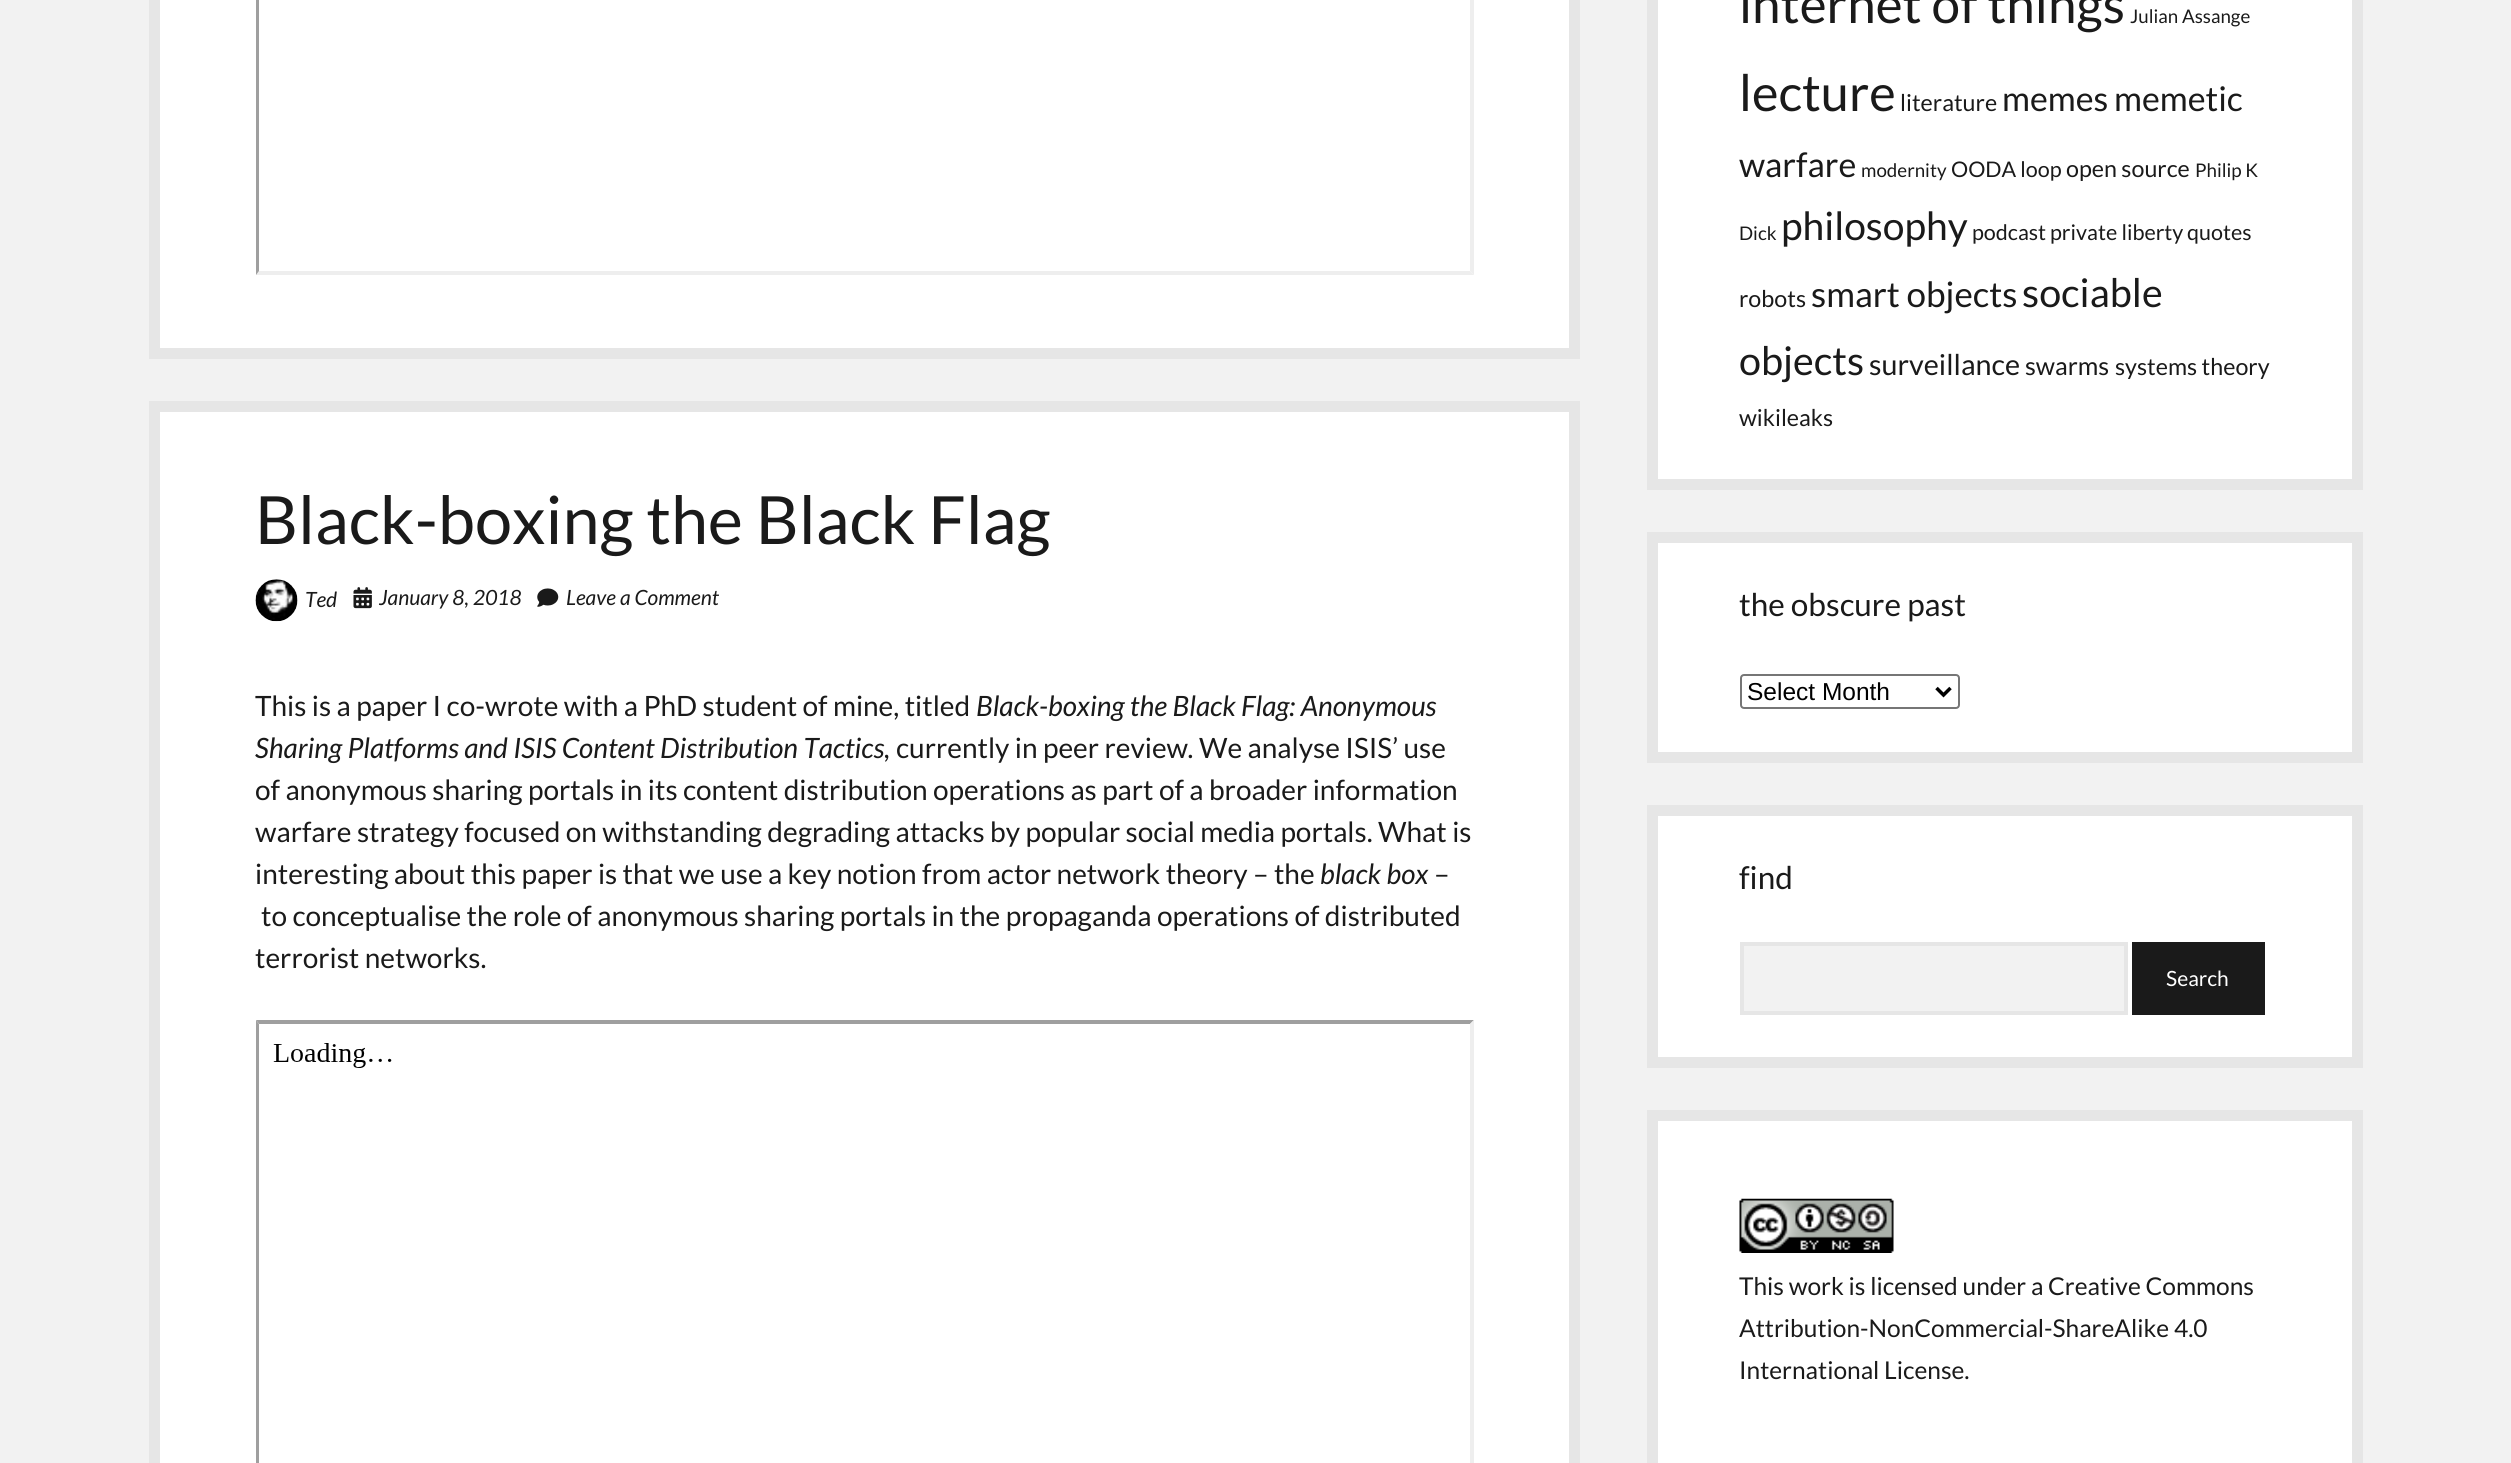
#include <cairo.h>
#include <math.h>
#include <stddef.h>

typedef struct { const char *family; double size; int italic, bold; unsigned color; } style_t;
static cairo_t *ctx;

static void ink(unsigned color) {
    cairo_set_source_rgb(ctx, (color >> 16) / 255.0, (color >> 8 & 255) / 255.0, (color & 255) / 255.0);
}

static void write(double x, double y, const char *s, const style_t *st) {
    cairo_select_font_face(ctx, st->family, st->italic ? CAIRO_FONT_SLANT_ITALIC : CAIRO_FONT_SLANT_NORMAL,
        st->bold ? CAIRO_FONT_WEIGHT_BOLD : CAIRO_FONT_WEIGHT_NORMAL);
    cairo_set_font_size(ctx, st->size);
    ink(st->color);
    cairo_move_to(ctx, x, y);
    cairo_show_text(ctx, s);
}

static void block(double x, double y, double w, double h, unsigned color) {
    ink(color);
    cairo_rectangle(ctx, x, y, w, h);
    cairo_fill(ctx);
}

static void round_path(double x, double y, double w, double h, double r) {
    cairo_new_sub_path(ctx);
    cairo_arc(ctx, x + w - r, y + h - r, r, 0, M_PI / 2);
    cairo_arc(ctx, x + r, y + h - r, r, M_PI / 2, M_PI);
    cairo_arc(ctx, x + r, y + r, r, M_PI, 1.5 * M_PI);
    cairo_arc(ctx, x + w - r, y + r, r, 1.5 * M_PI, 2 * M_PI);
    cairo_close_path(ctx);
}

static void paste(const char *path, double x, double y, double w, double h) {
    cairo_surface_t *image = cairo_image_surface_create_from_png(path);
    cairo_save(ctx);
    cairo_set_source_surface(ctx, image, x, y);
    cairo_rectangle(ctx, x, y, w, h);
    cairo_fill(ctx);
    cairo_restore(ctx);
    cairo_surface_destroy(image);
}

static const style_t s1 = {"Lato", 66.5, 0, 0, 0x1a1a1a};
static const style_t s2 = {"Lato", 21, 1, 0, 0x1a1a1a};
static const style_t s3 = {"Lato", 28, 0, 0, 0x1a1a1a};
static const style_t s4 = {"Lato", 28, 1, 0, 0x1a1a1a};
static const style_t s5 = {"Lato", 51.25, 0, 0, 0x1a1a1a};
static const style_t s6 = {"Lato", 18.75, 0, 0, 0x1a1a1a};
static const style_t s7 = {"Lato", 50.5, 0, 0, 0x1a1a1a};
static const style_t s8 = {"Lato", 23.25, 0, 0, 0x1a1a1a};
static const style_t s9 = {"Lato", 34, 0, 0, 0x1a1a1a};
static const style_t s10 = {"Lato", 21.5, 0, 0, 0x1a1a1a};
static const style_t s11 = {"Lato", 39, 0, 0, 0x1a1a1a};
static const style_t s12 = {"Lato", 35, 0, 0, 0x1a1a1a};
static const style_t s13 = {"Lato", 39.5, 0, 0, 0x1a1a1a};
static const style_t s14 = {"Lato", 28.75, 0, 0, 0x1a1a1a};
static const style_t s15 = {"Lato", 25, 0, 0, 0x1a1a1a};
static const style_t s16 = {"Lato", 31.5, 0, 0, 0x1a1a1a};
static const style_t s17 = {"Liberation Sans", 24.5, 0, 0, 0x000000};
static const style_t s18 = {"Lato", 21, 0, 0, 0xffffff};
static const style_t s19 = {"Lato", 24.5, 0, 0, 0x1a1a1a};

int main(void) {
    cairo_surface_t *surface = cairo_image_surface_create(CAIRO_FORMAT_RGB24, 2511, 1463);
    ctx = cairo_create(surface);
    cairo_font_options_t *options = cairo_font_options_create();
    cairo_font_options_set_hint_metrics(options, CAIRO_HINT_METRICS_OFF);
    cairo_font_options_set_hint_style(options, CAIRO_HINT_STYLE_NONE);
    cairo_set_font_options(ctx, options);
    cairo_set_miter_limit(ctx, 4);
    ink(0xf2f2f2);
    cairo_paint(ctx);
    ink(0xffffff);
    cairo_rectangle(ctx, 154.5, -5.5, 1420, 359);
    cairo_fill_preserve(ctx);
    ink(0xe6e6e6);
    cairo_set_line_width(ctx, 11);
    cairo_stroke(ctx);
    ink(0xeeeeee);
    cairo_new_path(ctx);
    cairo_move_to(ctx, 1474, -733);
    cairo_line_to(ctx, 1474, 275);
    cairo_line_to(ctx, 1470, 271);
    cairo_line_to(ctx, 1470, -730);
    cairo_close_path(ctx);
    cairo_fill(ctx);
    cairo_new_path(ctx);
    cairo_move_to(ctx, 1474, 275);
    cairo_line_to(ctx, 256, 275);
    cairo_line_to(ctx, 259, 271);
    cairo_line_to(ctx, 1470, 271);
    cairo_close_path(ctx);
    cairo_fill(ctx);
    ink(0x9f9f9f);
    cairo_new_path(ctx);
    cairo_move_to(ctx, 256, 275);
    cairo_line_to(ctx, 256, -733);
    cairo_line_to(ctx, 259, -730);
    cairo_line_to(ctx, 259, 271);
    cairo_close_path(ctx);
    cairo_fill(ctx);
    ink(0xffffff);
    cairo_rectangle(ctx, 154.5, 406.5, 1420, 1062);
    cairo_fill_preserve(ctx);
    ink(0xe6e6e6);
    cairo_stroke(ctx);
    write(255, 544, "Black-boxing the Black Flag", &s1);
    paste("pic1.png", 255, 579, 43, 43);
    write(305, 607, "Ted", &s2);
    paste("pic2.png", 353, 587, 19, 22);
    write(379, 605, "January 8, 2018", &s2);
    paste("pic3.png", 537, 588, 22, 19);
    write(566, 605, "Leave a Comment", &s2);
    write(255, 716, "This is a paper I co-wrote with a PhD student of mine, titled", &s3);
    write(976, 716, "Black-boxing the Black Flag: Anonymous", &s4);
    write(255, 758, "Sharing Platforms and ISIS Content Distribution Tactics,", &s4);
    write(896, 758, "currently in peer review", &s3);
    write(1188, 758, ".", &s4);
    write(1199, 758, "We analyse ISIS’ use", &s3);
    write(255, 800, "of anonymous sharing portals in its content distribution operations as part of a broader information", &s3);
    write(255, 842, "warfare strategy focused on withstanding degrading attacks by popular social media portals. What is", &s3);
    write(255, 884, "interesting about this paper is that we use a key notion from actor network theory – the", &s3);
    write(1320, 884, "black box", &s4);
    write(1434, 884, "–", &s3);
    write(261, 926, "to conceptualise the role of anonymous sharing portals in the propaganda operations of distributed", &s3);
    write(255, 968, "terrorist networks.", &s3);
    ink(0x9f9f9f);
    cairo_new_path(ctx);
    cairo_move_to(ctx, 256, 1020);
    cairo_line_to(ctx, 1474, 1020);
    cairo_line_to(ctx, 1470, 1024);
    cairo_line_to(ctx, 259, 1024);
    cairo_close_path(ctx);
    cairo_fill(ctx);
    cairo_new_path(ctx);
    cairo_move_to(ctx, 256, 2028);
    cairo_line_to(ctx, 256, 1020);
    cairo_line_to(ctx, 259, 1024);
    cairo_line_to(ctx, 259, 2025);
    cairo_close_path(ctx);
    cairo_fill(ctx);
    paste("pic4.png", 273, 1043, 119, 25);
    ink(0xeeeeee);
    cairo_new_path(ctx);
    cairo_move_to(ctx, 1474, 1020);
    cairo_line_to(ctx, 1474, 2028);
    cairo_line_to(ctx, 1470, 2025);
    cairo_line_to(ctx, 1470, 1024);
    cairo_close_path(ctx);
    cairo_fill(ctx);
    ink(0xffffff);
    cairo_rectangle(ctx, 1652.5, -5.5, 705, 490);
    cairo_fill_preserve(ctx);
    ink(0xe6e6e6);
    cairo_stroke(ctx);
    write(1739, 23, "internet of things", &s5);
    write(2130, 23, "Julian Assange", &s6);
    write(1739, 111, "lecture", &s7);
    write(1900, 111, "literature", &s8);
    write(2002, 111, "memes", &s9);
    write(2114, 111, "memetic", &s9);
    write(1739, 177, "warfare", &s9);
    write(1861, 177, "modernity", &s6);
    write(1951, 177, "OODA loop", &s10);
    write(2066, 177, "open source", &s8);
    write(2195, 177, "Philip K", &s6);
    write(1739, 240, "Dick", &s6);
    write(1781, 240, "philosophy", &s11);
    write(1972, 240, "podcast", &s10);
    write(2050, 240, "private liberty", &s10);
    write(2187, 240, "quotes", &s10);
    write(1739, 307, "robots", &s8);
    write(1811, 307, "smart objects", &s12);
    write(2022, 307, "sociable", &s13);
    write(1739, 375, "objects", &s13);
    write(1869, 375, "surveillance", &s14);
    write(2025, 375, "swarms", &s15);
    write(2115, 375, "systems theory", &s8);
    write(1739, 426, "wikileaks", &s8);
    ink(0xffffff);
    cairo_rectangle(ctx, 1652.5, 537.5, 705, 220);
    cairo_fill_preserve(ctx);
    ink(0xe6e6e6);
    cairo_stroke(ctx);
    write(1739, 616, "the obscure past", &s16);
    round_path(1741, 675, 218, 33, 3);
    ink(0x767676);
    cairo_set_line_width(ctx, 2);
    cairo_stroke(ctx);
    cairo_new_path(ctx);
    cairo_move_to(ctx, 1936.5, 688);
    cairo_line_to(ctx, 1943.5, 695);
    cairo_line_to(ctx, 1950.5, 688);
    ink(0x000000);
    cairo_set_line_width(ctx, 3.5);
    cairo_stroke(ctx);
    write(1747, 700, "Select Month", &s17);
    ink(0xffffff);
    cairo_rectangle(ctx, 1652.5, 810.5, 705, 252);
    cairo_fill_preserve(ctx);
    ink(0xe6e6e6);
    cairo_set_line_width(ctx, 11);
    cairo_stroke(ctx);
    write(1739, 889, "find", &s16);
    ink(0xf2f2f2);
    cairo_rectangle(ctx, 1742, 944, 384, 69);
    cairo_fill_preserve(ctx);
    ink(0xe6e6e6);
    cairo_set_line_width(ctx, 4);
    cairo_stroke(ctx);
    block(2132, 942, 133, 73, 0x1a1a1a);
    write(2166, 986, "Search", &s18);
    cairo_rectangle(ctx, 1652.5, 1115.5, 705, 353);
    cairo_fill_preserve(ctx);
    ink(0xe6e6e6);
    cairo_set_line_width(ctx, 11);
    cairo_stroke(ctx);
    paste("pic5.png", 1739, 1198, 155, 55);
    write(1739, 1295, "This work is licensed under a Creative Commons", &s19);
    write(1739, 1337, "Attribution-NonCommercial-ShareAlike 4.0", &s19);
    write(1739, 1379, "International License.", &s19);
    cairo_surface_write_to_png(surface, "screenshot.png");
    cairo_font_options_destroy(options);
    cairo_destroy(ctx);
    cairo_surface_destroy(surface);
    return 0;
}
